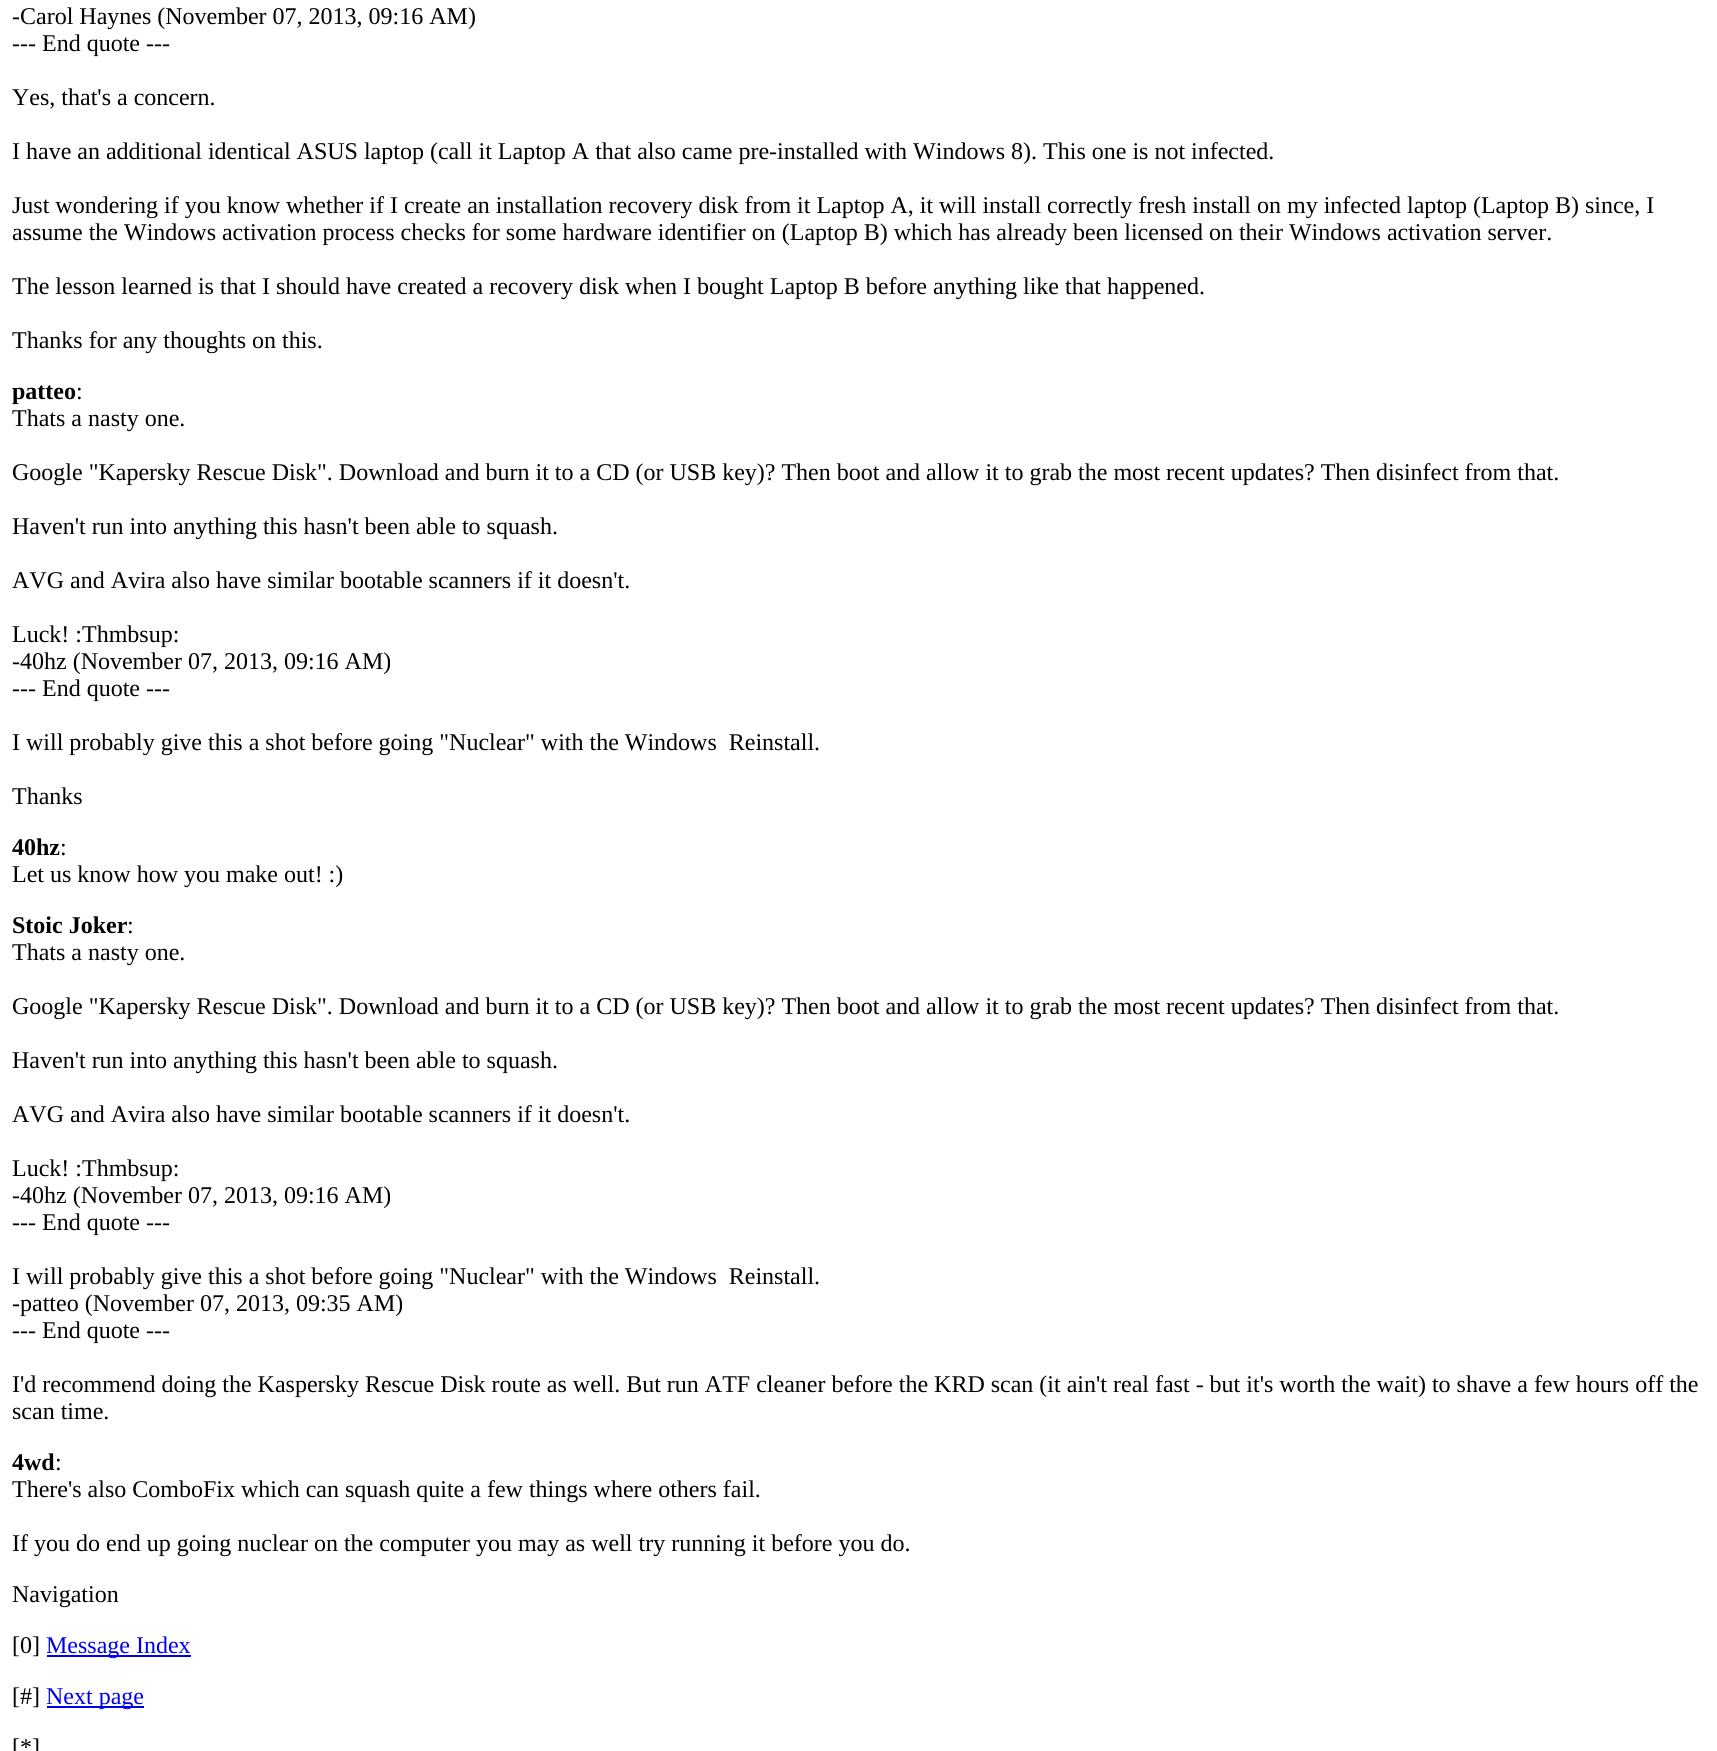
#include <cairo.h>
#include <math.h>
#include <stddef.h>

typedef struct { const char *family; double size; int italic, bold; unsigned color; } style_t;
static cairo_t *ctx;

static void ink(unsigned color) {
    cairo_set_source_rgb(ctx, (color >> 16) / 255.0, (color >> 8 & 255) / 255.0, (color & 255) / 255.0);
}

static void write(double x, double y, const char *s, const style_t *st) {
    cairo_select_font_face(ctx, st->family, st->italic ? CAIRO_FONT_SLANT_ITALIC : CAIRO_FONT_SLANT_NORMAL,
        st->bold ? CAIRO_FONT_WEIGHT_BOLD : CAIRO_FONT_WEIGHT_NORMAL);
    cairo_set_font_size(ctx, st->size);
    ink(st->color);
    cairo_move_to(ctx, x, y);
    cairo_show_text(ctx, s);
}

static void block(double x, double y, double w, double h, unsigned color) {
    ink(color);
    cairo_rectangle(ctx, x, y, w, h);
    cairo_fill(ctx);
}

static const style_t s1 = {"Liberation Serif", 24, 0, 0, 0x000000};
static const style_t s2 = {"Liberation Serif", 24, 0, 1, 0x000000};
static const style_t s3 = {"Liberation Serif", 24, 0, 0, 0x0000ee};

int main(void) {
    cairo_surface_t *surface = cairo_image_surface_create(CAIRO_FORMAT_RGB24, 1717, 1751);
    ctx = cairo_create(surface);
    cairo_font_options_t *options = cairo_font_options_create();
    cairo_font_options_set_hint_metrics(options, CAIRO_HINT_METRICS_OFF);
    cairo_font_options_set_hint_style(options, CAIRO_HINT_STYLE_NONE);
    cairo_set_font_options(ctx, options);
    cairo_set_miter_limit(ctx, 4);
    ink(0xffffff);
    cairo_paint(ctx);
    write(12, 24, "-Carol Haynes (November 07, 2013, 09:16 AM)", &s1);
    write(12, 51, "--- End quote ---", &s1);
    write(12, 105, "Yes, that's a concern.", &s1);
    write(12, 159, "I have an additional identical ASUS laptop (call it Laptop A that also came pre-installed with Windows 8). This one is not infected.", &s1);
    write(12, 213, "Just wondering if you know whether if I create an installation recovery disk from it Laptop A, it will install correctly fresh install on my infected laptop (Laptop B) since, I", &s1);
    write(12, 240, "assume the Windows activation process checks for some hardware identifier on (Laptop B) which has already been licensed on their Windows activation server.", &s1);
    write(12, 294, "The lesson learned is that I should have created a recovery disk when I bought Laptop B before anything like that happened.", &s1);
    write(12, 348, "Thanks for any thoughts on this.", &s1);
    write(12, 399, "patteo", &s2);
    write(76, 399, ":", &s1);
    write(12, 426, "Thats a nasty one.", &s1);
    write(12, 480, "Google \"Kapersky Rescue Disk\". Download and burn it to a CD (or USB key)? Then boot and allow it to grab the most recent updates? Then disinfect from that.", &s1);
    write(12, 534, "Haven't run into anything this hasn't been able to squash.", &s1);
    write(12, 588, "AVG and Avira also have similar bootable scanners if it doesn't.", &s1);
    write(12, 642, "Luck! :Thmbsup:", &s1);
    write(12, 669, "-40hz (November 07, 2013, 09:16 AM)", &s1);
    write(12, 696, "--- End quote ---", &s1);
    write(12, 750, "I will probably give this a shot before going \"Nuclear\" with the Windows  Reinstall.", &s1);
    write(12, 804, "Thanks", &s1);
    write(12, 855, "40hz", &s2);
    write(60, 855, ":", &s1);
    write(12, 882, "Let us know how you make out! :)", &s1);
    write(12, 933, "Stoic Joker", &s2);
    write(127, 933, ":", &s1);
    write(12, 960, "Thats a nasty one.", &s1);
    write(12, 1014, "Google \"Kapersky Rescue Disk\". Download and burn it to a CD (or USB key)? Then boot and allow it to grab the most recent updates? Then disinfect from that.", &s1);
    write(12, 1068, "Haven't run into anything this hasn't been able to squash.", &s1);
    write(12, 1122, "AVG and Avira also have similar bootable scanners if it doesn't.", &s1);
    write(12, 1176, "Luck! :Thmbsup:", &s1);
    write(12, 1203, "-40hz (November 07, 2013, 09:16 AM)", &s1);
    write(12, 1230, "--- End quote ---", &s1);
    write(12, 1284, "I will probably give this a shot before going \"Nuclear\" with the Windows  Reinstall.", &s1);
    write(12, 1311, "-patteo (November 07, 2013, 09:35 AM)", &s1);
    write(12, 1338, "--- End quote ---", &s1);
    write(12, 1392, "I'd recommend doing the Kaspersky Rescue Disk route as well. But run ATF cleaner before the KRD scan (it ain't real fast - but it's worth the wait) to shave a few hours off the", &s1);
    write(12, 1419, "scan time.", &s1);
    write(12, 1470, "4wd", &s2);
    write(55, 1470, ":", &s1);
    write(12, 1497, "There's also ComboFix which can squash quite a few things where others fail.", &s1);
    write(12, 1551, "If you do end up going nuclear on the computer you may as well try running it before you do.", &s1);
    write(12, 1602, "Navigation", &s1);
    write(12, 1653, "[0]", &s1);
    block(47, 1655, 144, 2, 0x0000ee);
    write(46, 1653, "Message Index", &s3);
    write(12, 1704, "[#]", &s1);
    block(47, 1706, 97, 2, 0x0000ee);
    write(46, 1704, "Next page", &s3);
    write(12, 1755, "[*]", &s1);
    cairo_surface_write_to_png(surface, "screenshot.png");
    cairo_font_options_destroy(options);
    cairo_destroy(ctx);
    cairo_surface_destroy(surface);
    return 0;
}
